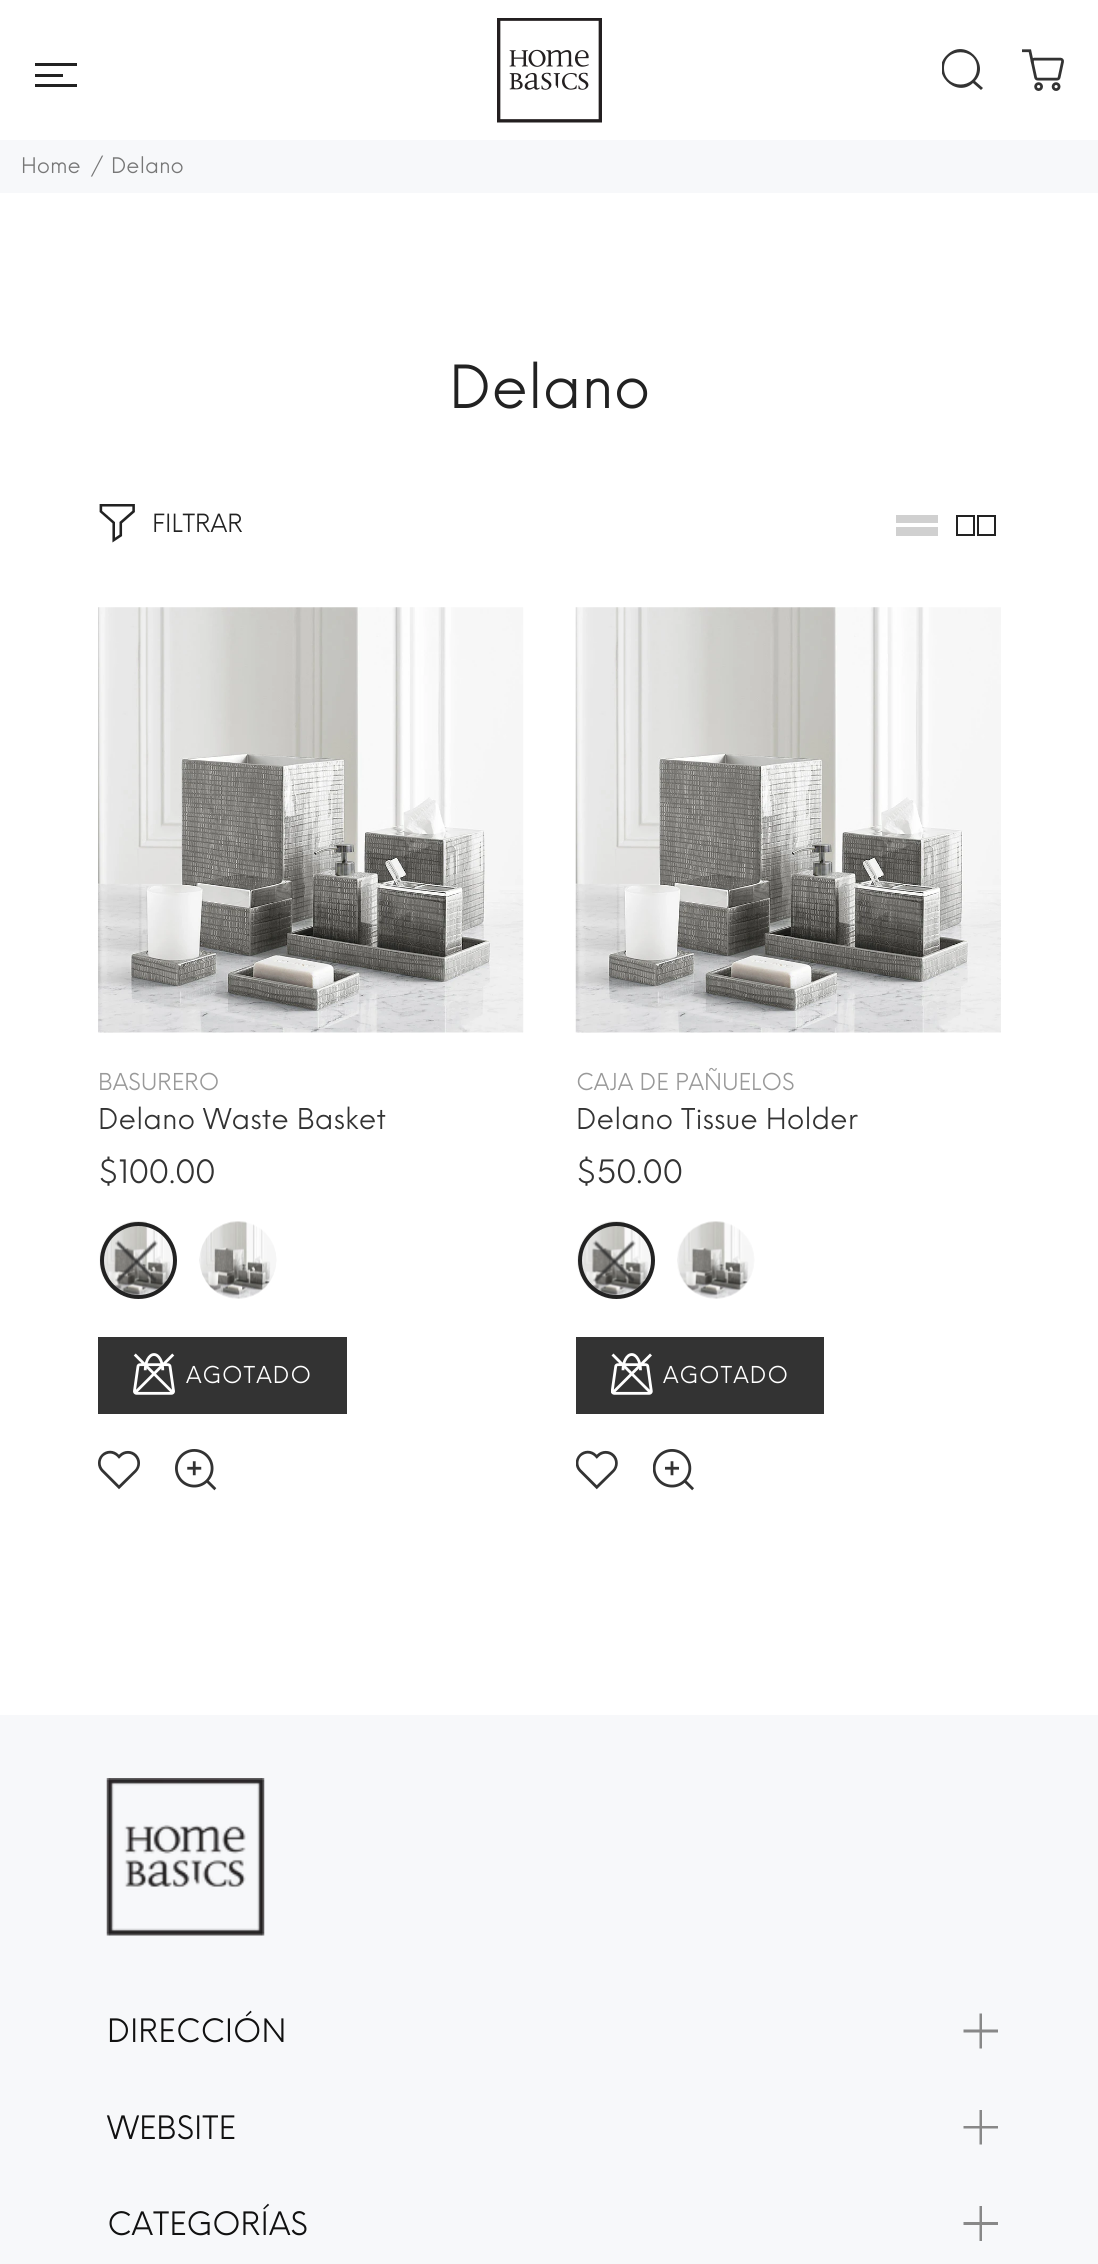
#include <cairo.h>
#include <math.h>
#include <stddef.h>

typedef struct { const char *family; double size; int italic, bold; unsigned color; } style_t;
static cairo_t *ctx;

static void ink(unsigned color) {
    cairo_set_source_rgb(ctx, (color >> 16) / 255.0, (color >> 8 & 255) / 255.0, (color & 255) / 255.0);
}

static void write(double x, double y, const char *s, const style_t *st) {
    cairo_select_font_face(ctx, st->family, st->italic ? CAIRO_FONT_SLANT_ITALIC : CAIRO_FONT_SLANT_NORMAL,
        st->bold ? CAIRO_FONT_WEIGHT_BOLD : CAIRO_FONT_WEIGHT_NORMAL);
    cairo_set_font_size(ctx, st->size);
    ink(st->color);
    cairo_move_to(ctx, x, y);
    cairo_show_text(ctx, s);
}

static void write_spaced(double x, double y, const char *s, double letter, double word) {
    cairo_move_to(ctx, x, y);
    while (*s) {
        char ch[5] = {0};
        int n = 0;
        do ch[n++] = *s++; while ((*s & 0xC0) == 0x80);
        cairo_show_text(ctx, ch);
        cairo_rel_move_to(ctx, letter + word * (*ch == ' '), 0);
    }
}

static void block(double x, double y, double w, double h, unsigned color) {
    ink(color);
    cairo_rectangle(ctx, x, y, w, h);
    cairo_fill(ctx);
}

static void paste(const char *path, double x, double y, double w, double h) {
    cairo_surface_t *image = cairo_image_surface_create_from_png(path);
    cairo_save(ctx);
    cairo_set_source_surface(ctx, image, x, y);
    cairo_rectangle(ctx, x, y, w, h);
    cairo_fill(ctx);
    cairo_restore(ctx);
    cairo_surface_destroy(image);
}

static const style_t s1 = {"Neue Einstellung", 21, 0, 0, 0x777777};
static const style_t s2 = {"Neue Einstellung", 58, 0, 0, 0x222222};
static const style_t s3 = {"Neue Einstellung", 24.5, 0, 0, 0x222222};
static const style_t s4 = {"Neue Einstellung", 22.75, 0, 0, 0x999999};
static const style_t s5 = {"Neue Einstellung", 28, 0, 0, 0x333333};
static const style_t s6 = {"Neue Einstellung", 31.5, 0, 0, 0x333333};
static const style_t s7 = {"Neue Einstellung", 31.5, 0, 0, 0x111111};

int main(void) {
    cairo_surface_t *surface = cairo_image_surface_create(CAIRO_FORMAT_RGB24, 1098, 2264);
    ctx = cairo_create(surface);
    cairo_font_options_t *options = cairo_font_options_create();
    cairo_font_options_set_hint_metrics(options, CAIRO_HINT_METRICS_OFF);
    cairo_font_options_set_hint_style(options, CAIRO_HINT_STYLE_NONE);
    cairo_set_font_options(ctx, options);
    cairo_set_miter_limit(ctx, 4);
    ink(0xffffff);
    cairo_paint(ctx);
    block(35, 63, 42, 3, 0x222222);
    block(35, 74, 28, 3, 0x222222);
    block(35, 84, 42, 3, 0x222222);
    paste("pic1.png", 497, 18, 105, 105);
    cairo_save(ctx);
    cairo_rectangle(ctx, 942, 49, 42, 42);
    cairo_clip(ctx);
    ink(0x333333);
    cairo_new_path(ctx);
    cairo_move_to(ctx, 983, 88);
    cairo_line_to(ctx, 975, 81);
    cairo_curve_to(ctx, 991, 64, 965, 37, 947, 55);
    cairo_curve_to(ctx, 929, 72, 956, 99, 973, 83);
    cairo_line_to(ctx, 981, 90);
    cairo_close_path(ctx);
    cairo_move_to(ctx, 944, 68);
    cairo_curve_to(ctx, 944, 47, 977, 47, 977, 68);
    cairo_curve_to(ctx, 977, 90, 944, 90, 944, 68);
    cairo_close_path(ctx);
    cairo_fill(ctx);
    cairo_restore(ctx);
    paste("pic2.png", 1022, 49, 42, 42);
    block(0, 140, 1098, 53, 0xf7f8fa);
    write(21, 173, "Home", &s1);
    write(91, 173, "/", &s1);
    write(111, 173, "Delano", &s1);
    write(449, 408, "Delano", &s2);
    paste("pic3.png", 99, 504, 36, 39);
    write(152, 532, "FILTRAR", &s3);
    block(896, 515, 42, 8, 0xd0d0d0);
    block(896, 527, 42, 9, 0xd0d0d0);
    cairo_rectangle(ctx, 957, 516, 17, 19);
    ink(0x222222);
    cairo_stroke(ctx);
    cairo_rectangle(ctx, 978, 516, 17, 19);
    cairo_stroke(ctx);
    paste("pic4.png", 98, 607, 426, 426);
    write(98, 1090, "BASURERO", &s4);
    write(98, 1129, "Delano Waste Basket", &s5);
    write(98, 1183, "$100.00", &s6);
    paste("pic5.png", 99, 1221, 78, 78);
    cairo_arc(ctx, 138.5, 1260.5, 36.5, 0, 2 * M_PI);
    ink(0x222222);
    cairo_set_line_width(ctx, 4);
    cairo_stroke(ctx);
    paste("pic6.png", 115, 1240, 43, 44);
    paste("pic7.png", 199, 1221, 78, 78);
    block(98, 1337, 249, 77, 0x333333);
    paste("pic8.png", 133, 1353, 42, 42);
    cairo_set_font_size(ctx, 22.75);
    ink(0xffffff);
    write_spaced(186, 1383, "AGOTADO", 1, 0);
    paste("pic9.png", 98, 1450, 42, 40);
    paste("pic10.png", 175, 1449, 42, 42);
    paste("pic11.png", 575, 607, 426, 426);
    write(576, 1090, "CAJA DE PAÑUELOS", &s4);
    write(576, 1129, "Delano Tissue Holder", &s5);
    write(576, 1183, "$50.00", &s6);
    paste("pic12.png", 577, 1221, 78, 78);
    cairo_arc(ctx, 616.5, 1260.5, 36.5, 0, 2 * M_PI);
    ink(0x222222);
    cairo_stroke(ctx);
    paste("pic13.png", 592, 1240, 44, 43);
    paste("pic14.png", 677, 1221, 78, 78);
    block(576, 1337, 248, 77, 0x333333);
    paste("pic15.png", 611, 1353, 42, 42);
    cairo_set_font_size(ctx, 22.75);
    ink(0xffffff);
    write_spaced(663, 1383, "AGOTADO", 1, 0);
    paste("pic16.png", 576, 1450, 42, 40);
    paste("pic17.png", 653, 1449, 41, 42);
    block(0, 1715, 1098, 549, 0xf7f8fa);
    paste("pic18.png", 106, 1778, 159, 158);
    write(107, 2042, "DIRECCIÓN", &s7);
    ink(0x888888);
    cairo_new_path(ctx);
    cairo_move_to(ctx, 998, 2029.5);
    cairo_line_to(ctx, 963.5, 2029.5);
    cairo_line_to(ctx, 963.5, 2032.5);
    cairo_line_to(ctx, 998, 2032.5);
    cairo_close_path(ctx);
    cairo_move_to(ctx, 979.5, 2013.5);
    cairo_line_to(ctx, 979.5, 2048.5);
    cairo_line_to(ctx, 982, 2048.5);
    cairo_line_to(ctx, 982, 2013.5);
    cairo_close_path(ctx);
    cairo_fill(ctx);
    write(107, 2139, "WEBSITE", &s7);
    ink(0x888888);
    cairo_new_path(ctx);
    cairo_move_to(ctx, 998, 2126);
    cairo_line_to(ctx, 963.5, 2126);
    cairo_line_to(ctx, 963.5, 2128.5);
    cairo_line_to(ctx, 998, 2128.5);
    cairo_close_path(ctx);
    cairo_move_to(ctx, 979.5, 2110);
    cairo_line_to(ctx, 979.5, 2144.5);
    cairo_line_to(ctx, 982, 2144.5);
    cairo_line_to(ctx, 982, 2110);
    cairo_close_path(ctx);
    cairo_fill(ctx);
    write(107, 2235, "CATEGORÍAS", &s7);
    ink(0x888888);
    cairo_new_path(ctx);
    cairo_move_to(ctx, 998, 2222);
    cairo_line_to(ctx, 963.5, 2222);
    cairo_line_to(ctx, 963.5, 2225);
    cairo_line_to(ctx, 998, 2225);
    cairo_close_path(ctx);
    cairo_move_to(ctx, 979.5, 2206);
    cairo_line_to(ctx, 979.5, 2241);
    cairo_line_to(ctx, 982, 2241);
    cairo_line_to(ctx, 982, 2206);
    cairo_close_path(ctx);
    cairo_fill(ctx);
    cairo_surface_write_to_png(surface, "screenshot.png");
    cairo_font_options_destroy(options);
    cairo_destroy(ctx);
    cairo_surface_destroy(surface);
    return 0;
}
